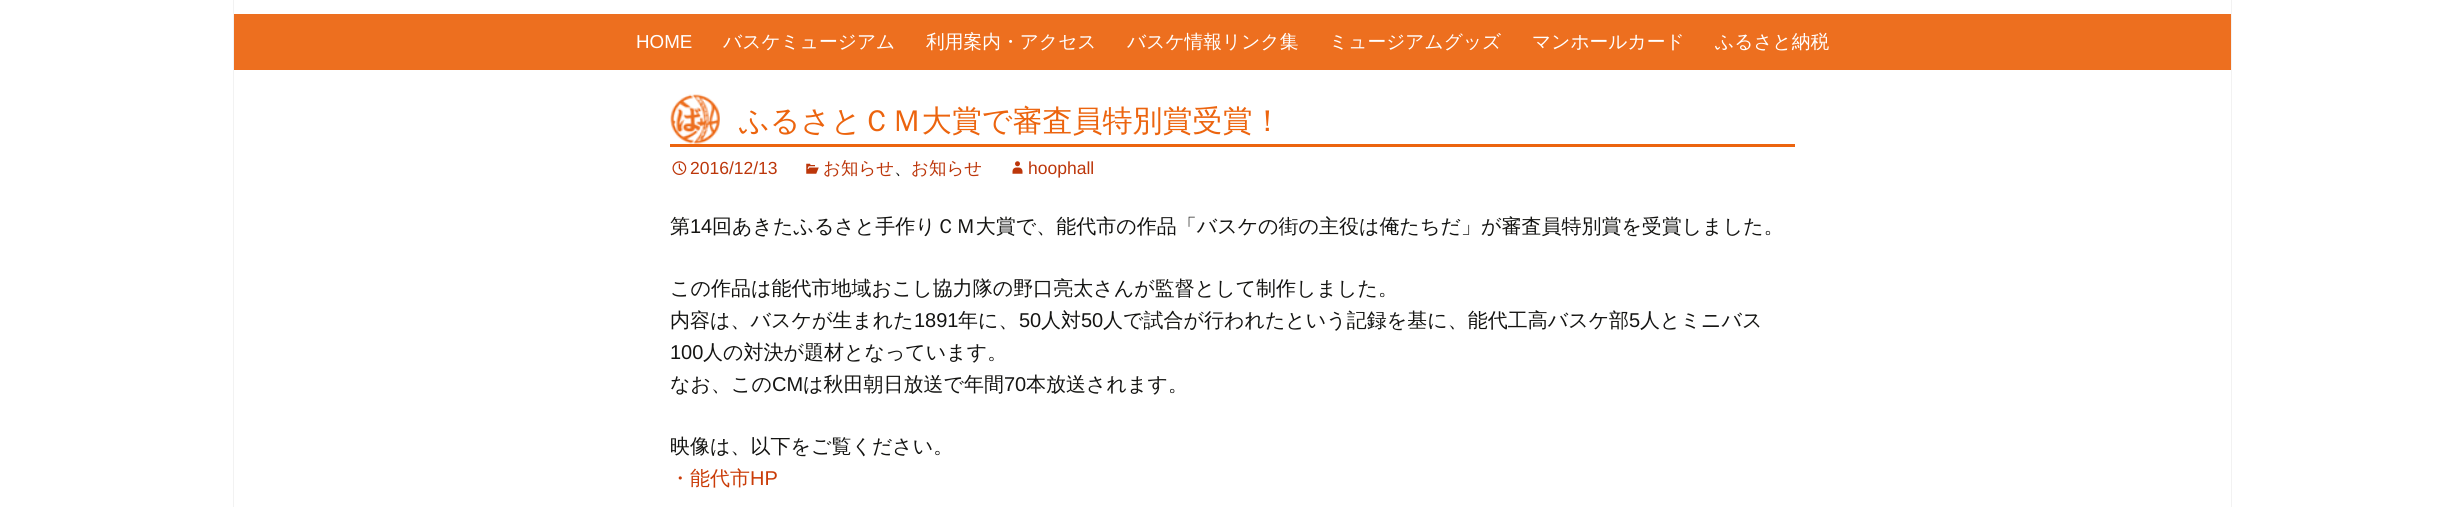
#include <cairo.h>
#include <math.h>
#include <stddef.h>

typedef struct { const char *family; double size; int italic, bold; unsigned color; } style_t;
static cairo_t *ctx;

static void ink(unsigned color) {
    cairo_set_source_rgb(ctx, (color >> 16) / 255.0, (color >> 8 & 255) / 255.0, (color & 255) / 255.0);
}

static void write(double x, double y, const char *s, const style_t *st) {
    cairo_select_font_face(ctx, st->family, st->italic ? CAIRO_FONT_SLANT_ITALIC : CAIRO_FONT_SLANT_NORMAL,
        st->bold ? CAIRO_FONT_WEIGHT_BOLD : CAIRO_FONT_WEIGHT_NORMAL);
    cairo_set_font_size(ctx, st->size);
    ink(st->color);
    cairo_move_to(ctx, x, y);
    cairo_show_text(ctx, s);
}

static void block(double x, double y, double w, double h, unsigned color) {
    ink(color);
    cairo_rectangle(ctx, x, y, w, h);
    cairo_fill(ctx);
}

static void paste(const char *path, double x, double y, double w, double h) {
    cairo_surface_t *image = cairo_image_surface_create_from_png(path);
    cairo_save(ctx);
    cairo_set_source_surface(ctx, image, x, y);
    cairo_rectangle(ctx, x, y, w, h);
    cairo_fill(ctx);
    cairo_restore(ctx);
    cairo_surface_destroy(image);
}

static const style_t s1 = {"Liberation Sans", 18.75, 0, 0, 0xffffff};
static const style_t s2 = {"WenQuanYi Zen Hei Medium", 18.75, 0, 0, 0xffffff};
static const style_t s3 = {"WenQuanYi Zen Hei Medium", 30, 0, 0, 0xec640e};
static const style_t s4 = {"Liberation Sans", 17.5, 0, 0, 0xbc360a};
static const style_t s5 = {"WenQuanYi Zen Hei Medium", 17.5, 0, 0, 0xbc360a};
static const style_t s6 = {"WenQuanYi Zen Hei Medium", 17.5, 0, 0, 0x141412};
static const style_t s7 = {"WenQuanYi Zen Hei Medium", 20, 0, 0, 0x141412};
static const style_t s8 = {"Liberation Sans", 20, 0, 0, 0x141412};
static const style_t s9 = {"WenQuanYi Zen Hei Medium", 20, 0, 0, 0xca3c08};
static const style_t s10 = {"Liberation Sans", 20, 0, 0, 0xca3c08};

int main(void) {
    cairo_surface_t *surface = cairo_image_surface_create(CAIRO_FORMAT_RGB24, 2464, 507);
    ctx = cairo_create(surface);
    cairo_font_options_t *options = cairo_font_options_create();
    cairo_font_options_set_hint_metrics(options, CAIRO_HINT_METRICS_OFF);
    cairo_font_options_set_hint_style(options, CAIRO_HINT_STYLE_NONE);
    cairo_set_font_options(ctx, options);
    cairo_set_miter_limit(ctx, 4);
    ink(0xffffff);
    cairo_paint(ctx);
    block(2231, 0, 1, 507, 0xf2f2f2);
    block(233, 0, 1, 507, 0xf2f2f2);
    block(234, 14, 1997, 56, 0xed6f1f);
    write(636, 48, "HOME", &s1);
    write(723, 48, "バスケミュージアム", &s2);
    write(926, 48, "利用案内・アクセス", &s2);
    write(1127, 48, "バスケ情報リンク集", &s2);
    write(1329, 48, "ミュージアムグッズ", &s2);
    write(1532, 48, "マンホールカード", &s2);
    write(1715, 48, "ふるさと納税", &s2);
    paste("pic1.png", 670, 94, 50, 50);
    block(670, 144, 1125, 3, 0xec640e);
    write(739, 131, "ふるさとＣＭ大賞で審査員特別賞受賞！", &s3);
    paste("pic2.png", 672, 161, 15, 14);
    write(690, 174, "2016/12/13", &s4);
    paste("pic3.png", 806, 163, 13, 11);
    write(823, 174, "お知らせ", &s5);
    write(894, 174, "、", &s6);
    write(911, 174, "お知らせ", &s5);
    paste("pic4.png", 1012, 161, 11, 13);
    write(1028, 174, "hoophall", &s4);
    write(670, 233, "第", &s7);
    write(690, 233, "14", &s8);
    write(712, 233, "回あきたふるさと手作りＣＭ大賞で、能代市の作品「バスケの街の主役は俺たちだ」が審査員特別賞を受賞しました。", &s7);
    write(670, 295, "この作品は能代市地域おこし協力隊の野口亮太さんが監督として制作しました。", &s7);
    write(670, 327, "内容は、バスケが生まれた", &s7);
    write(914, 327, "1891", &s8);
    write(958, 327, "年に、", &s7);
    write(1019, 327, "50", &s8);
    write(1041, 327, "人対", &s7);
    write(1081, 327, "50", &s8);
    write(1103, 327, "人で試合が行われたという記録を基に、能代工高バスケ部", &s7);
    write(1629, 327, "5", &s8);
    write(1640, 327, "人とミニバス", &s7);
    write(670, 359, "100", &s8);
    write(703, 359, "人の対決が題材となっています。", &s7);
    write(670, 391, "なお、この", &s7);
    write(772, 391, "CM", &s8);
    write(803, 391, "は秋田朝日放送で年間", &s7);
    write(1004, 391, "70", &s8);
    write(1026, 391, "本放送されます。", &s7);
    write(670, 453, "映像は、以下をご覧ください。", &s7);
    write(670, 485, "・能代市", &s9);
    write(750, 485, "HP", &s10);
    cairo_surface_write_to_png(surface, "screenshot.png");
    cairo_font_options_destroy(options);
    cairo_destroy(ctx);
    cairo_surface_destroy(surface);
    return 0;
}
